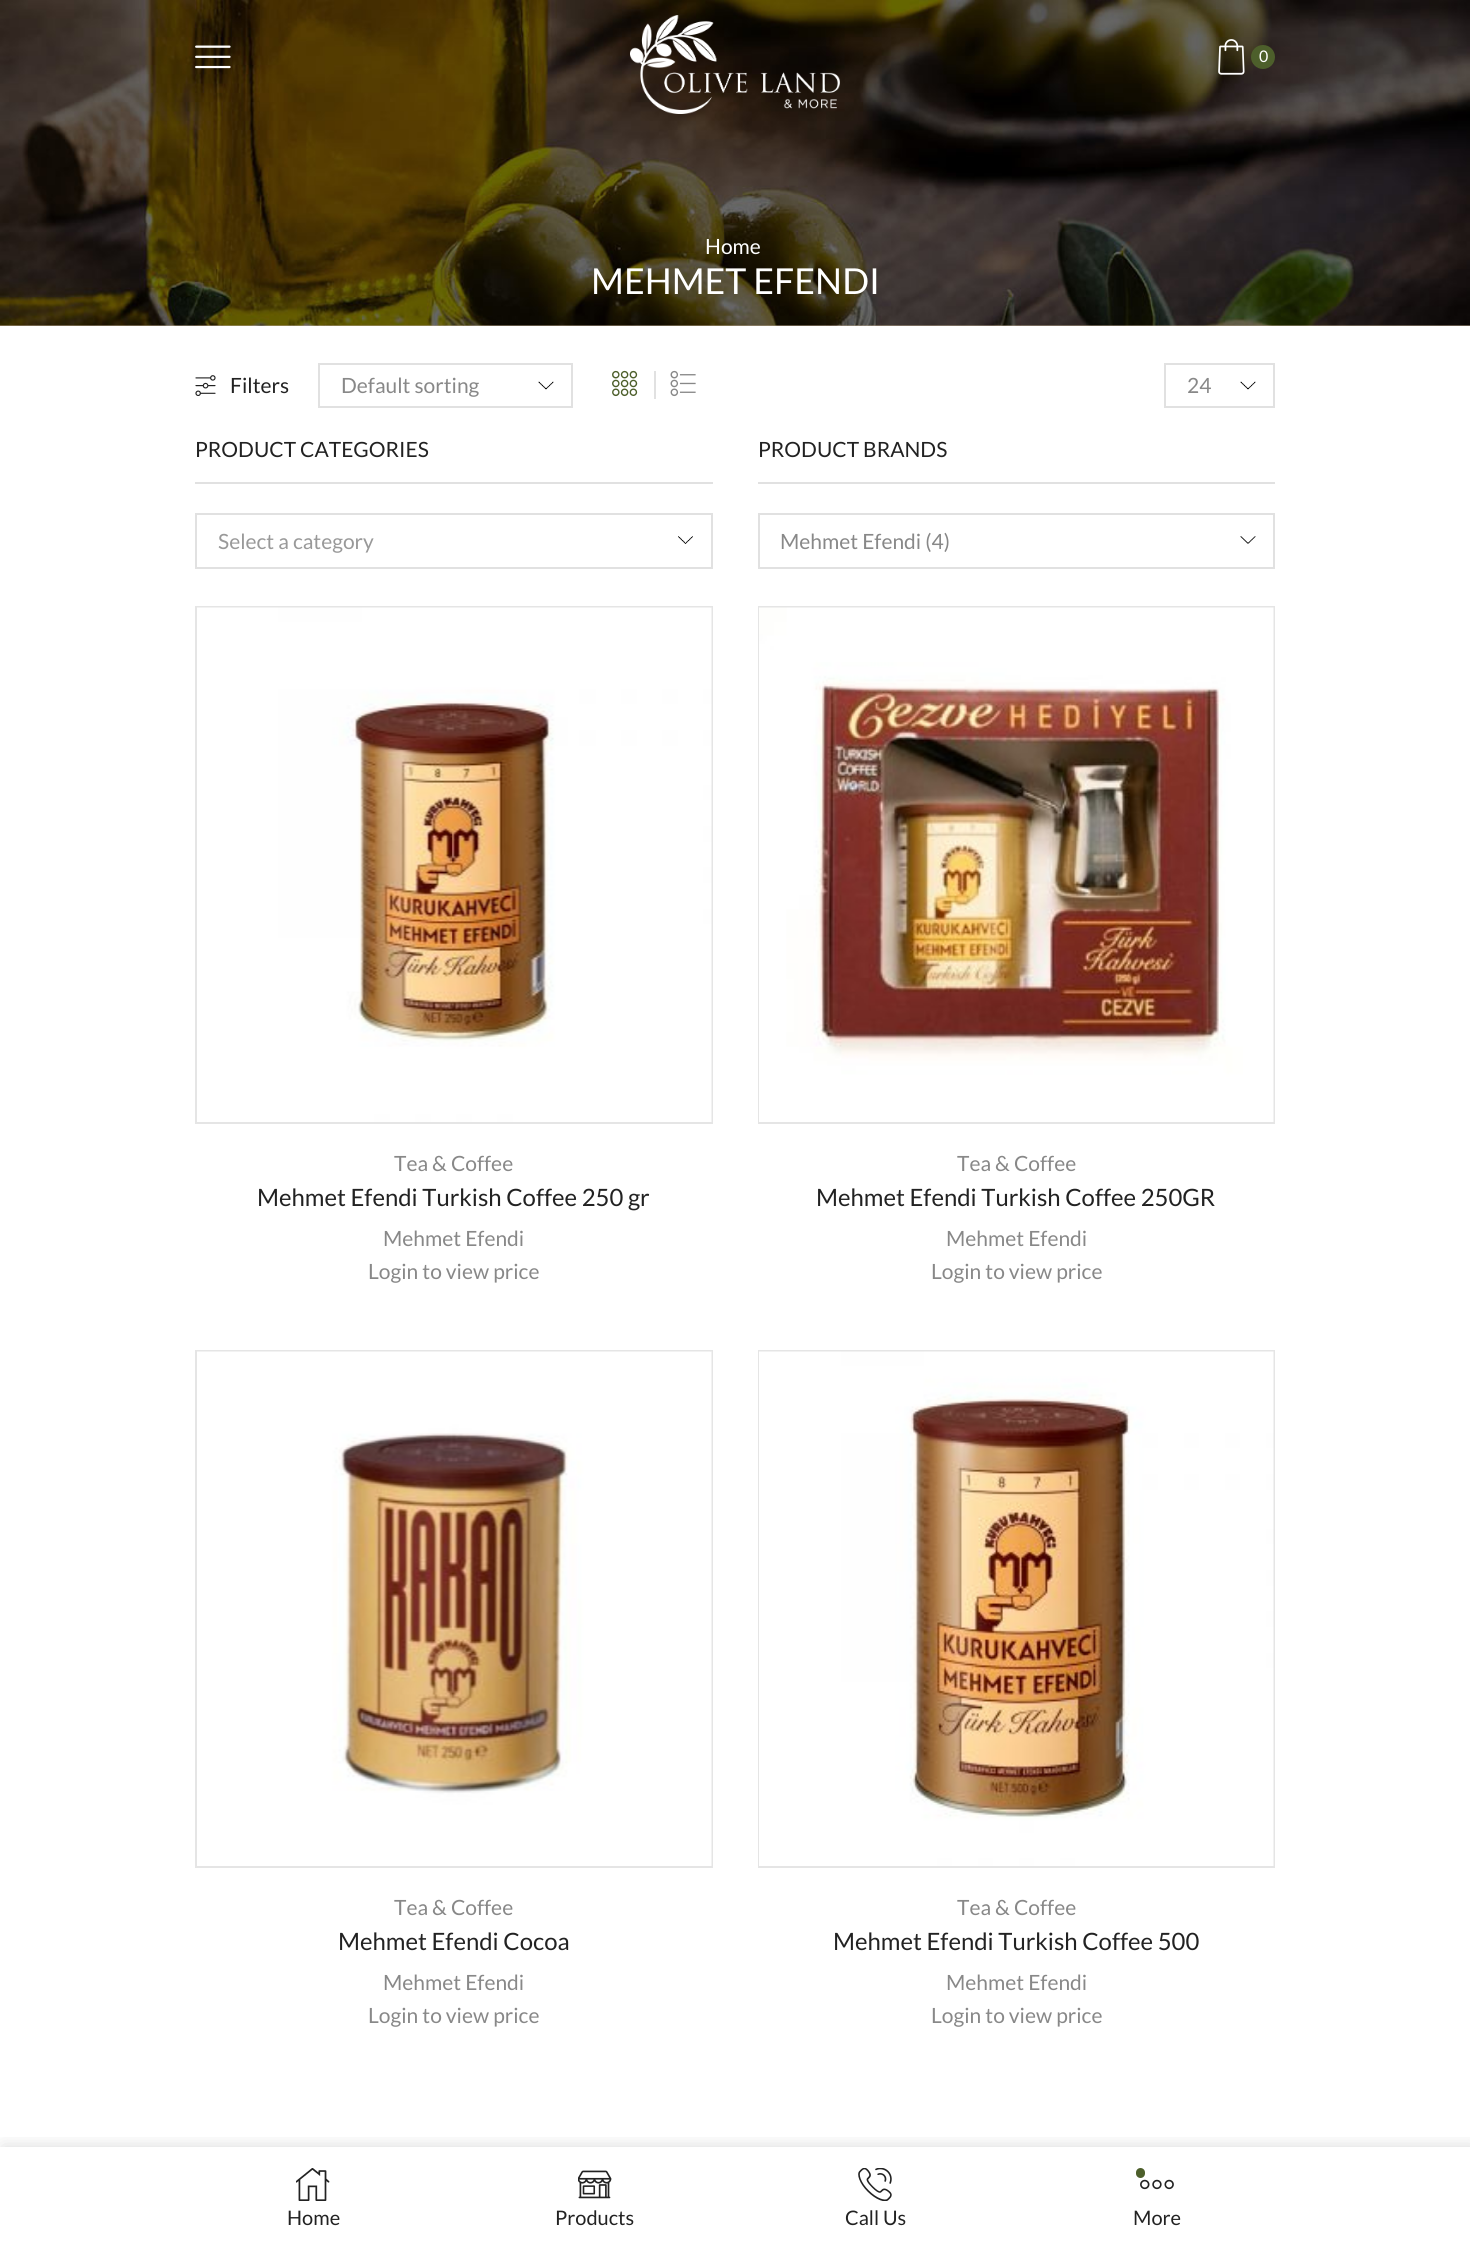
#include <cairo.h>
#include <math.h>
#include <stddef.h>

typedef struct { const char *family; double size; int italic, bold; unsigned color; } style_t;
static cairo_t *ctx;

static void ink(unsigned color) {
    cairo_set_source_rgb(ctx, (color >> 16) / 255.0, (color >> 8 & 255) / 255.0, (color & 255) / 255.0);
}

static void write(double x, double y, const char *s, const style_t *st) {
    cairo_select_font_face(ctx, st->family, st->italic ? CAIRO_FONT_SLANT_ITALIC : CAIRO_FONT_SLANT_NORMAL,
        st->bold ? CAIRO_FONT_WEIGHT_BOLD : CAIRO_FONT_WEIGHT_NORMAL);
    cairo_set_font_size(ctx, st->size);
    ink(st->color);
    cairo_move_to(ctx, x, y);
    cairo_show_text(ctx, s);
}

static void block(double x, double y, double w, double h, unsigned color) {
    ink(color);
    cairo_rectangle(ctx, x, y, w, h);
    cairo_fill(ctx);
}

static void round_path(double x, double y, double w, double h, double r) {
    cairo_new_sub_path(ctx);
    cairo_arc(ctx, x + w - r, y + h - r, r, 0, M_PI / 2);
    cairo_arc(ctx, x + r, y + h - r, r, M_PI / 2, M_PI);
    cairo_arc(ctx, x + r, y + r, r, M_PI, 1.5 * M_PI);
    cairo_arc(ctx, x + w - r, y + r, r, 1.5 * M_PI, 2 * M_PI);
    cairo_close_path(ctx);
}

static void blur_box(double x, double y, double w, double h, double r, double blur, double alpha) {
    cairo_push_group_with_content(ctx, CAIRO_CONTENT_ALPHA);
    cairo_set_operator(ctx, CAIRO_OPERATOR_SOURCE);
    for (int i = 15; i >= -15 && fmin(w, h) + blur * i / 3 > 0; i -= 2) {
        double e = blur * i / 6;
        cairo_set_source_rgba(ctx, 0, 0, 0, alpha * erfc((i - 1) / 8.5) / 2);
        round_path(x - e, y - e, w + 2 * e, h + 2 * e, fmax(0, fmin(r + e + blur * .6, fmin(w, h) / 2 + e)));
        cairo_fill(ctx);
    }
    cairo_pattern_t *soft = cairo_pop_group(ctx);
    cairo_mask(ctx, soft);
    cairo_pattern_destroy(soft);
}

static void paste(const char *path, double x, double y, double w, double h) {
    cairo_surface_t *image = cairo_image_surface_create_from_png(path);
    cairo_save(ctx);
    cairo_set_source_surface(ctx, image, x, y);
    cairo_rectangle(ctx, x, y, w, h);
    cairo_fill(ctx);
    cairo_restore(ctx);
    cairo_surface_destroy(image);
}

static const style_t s1 = {"Lato", 16, 0, 0, 0xffffff};
static const style_t s2 = {"Lato", 21, 0, 0, 0xffffff};
static const style_t s3 = {"Lato", 35.75, 0, 0, 0xffffff};
static const style_t s4 = {"Lato", 21, 0, 0, 0x222222};
static const style_t s5 = {"Lato", 21, 0, 0, 0x888888};
static const style_t s6 = {"Lato", 21, 0, 0, 0x999999};
static const style_t s7 = {"Lato", 23.9, 0, 0, 0x222222};
static const style_t s8 = {"Lato", 20, 0, 0, 0x222222};

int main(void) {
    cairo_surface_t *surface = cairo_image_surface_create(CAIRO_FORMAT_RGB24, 1470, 2248);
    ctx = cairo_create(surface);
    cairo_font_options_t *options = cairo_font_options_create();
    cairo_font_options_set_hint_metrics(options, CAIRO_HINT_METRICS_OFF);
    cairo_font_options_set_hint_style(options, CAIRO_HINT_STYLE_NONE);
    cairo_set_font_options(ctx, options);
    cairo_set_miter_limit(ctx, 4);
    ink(0xffffff);
    cairo_paint(ctx);
    block(0, 325, 1470, 1, 0xb3a089);
    paste("pic4.png", 0, 0, 1470, 326);
    paste("pic1.png", 195, 45, 36, 24);
    paste("pic2.png", 630, 15, 210, 99);
    paste("pic3.png", 1218, 39, 27, 36);
    ink(0x4d5f2b);
    cairo_arc(ctx, 1263, 57, 12, 0, 2 * M_PI);
    cairo_fill(ctx);
    write(1259, 62, "0", &s1);
    write(705, 254, "Home", &s2);
    write(591, 294, "MEHMET EFENDI", &s3);
    paste("pic5.png", 195, 375, 21, 21);
    write(230, 393, "Filters", &s4);
    paste("pic6.png", 538, 381, 16, 9);
    cairo_rectangle(ctx, 319, 364, 253, 43);
    ink(0xe1e1e1);
    cairo_stroke(ctx);
    write(341, 393, "Default sorting", &s5);
    paste("pic7.png", 612, 370, 26, 27);
    block(654, 371, 2, 28, 0xe1e1e1);
    paste("pic8.png", 670, 370, 26, 27);
    paste("pic9.png", 1240, 381, 16, 9);
    cairo_rectangle(ctx, 1165, 364, 109, 43);
    cairo_stroke(ctx);
    write(1187, 393, "24", &s5);
    block(195, 482, 518, 2, 0xe1e1e1);
    write(195, 457, "PRODUCT CATEGORIES", &s4);
    paste("pic10.png", 678, 536, 15, 8);
    cairo_rectangle(ctx, 196, 514, 516, 54);
    ink(0xe1e1e1);
    cairo_stroke(ctx);
    write(218, 549, "Select a category", &s6);
    block(758, 482, 517, 2, 0xe1e1e1);
    write(758, 457, "PRODUCT BRANDS", &s4);
    paste("pic11.png", 1240, 536, 16, 8);
    cairo_rectangle(ctx, 759, 514, 515, 54);
    ink(0xe1e1e1);
    cairo_stroke(ctx);
    write(780, 549, "Mehmet Efendi (4)", &s5);
    cairo_rectangle(ctx, 196, 607, 516, 516);
    ink(0xe5e5e5);
    cairo_stroke(ctx);
    paste("pic12.png", 197, 607, 515, 515);
    write(394, 1171, "Tea & Coffee", &s5);
    write(257, 1206, "Mehmet Efendi Turkish Coffee 250 gr", &s7);
    write(383, 1246, "Mehmet Efendi", &s5);
    write(368, 1279, "Login to view price", &s5);
    cairo_rectangle(ctx, 759, 607, 515, 516);
    ink(0xe5e5e5);
    cairo_stroke(ctx);
    paste("pic13.png", 759, 607, 515, 515);
    write(957, 1171, "Tea & Coffee", &s5);
    write(816, 1206, "Mehmet Efendi Turkish Coffee 250GR", &s7);
    write(946, 1246, "Mehmet Efendi", &s5);
    write(931, 1279, "Login to view price", &s5);
    cairo_rectangle(ctx, 196, 1351, 516, 516);
    ink(0xe5e5e5);
    cairo_stroke(ctx);
    paste("pic14.png", 197, 1351, 515, 515);
    write(394, 1915, "Tea & Coffee", &s5);
    write(338, 1950, "Mehmet Efendi Cocoa", &s7);
    write(383, 1990, "Mehmet Efendi", &s5);
    write(368, 2023, "Login to view price", &s5);
    cairo_rectangle(ctx, 759, 1351, 515, 516);
    ink(0xe5e5e5);
    cairo_stroke(ctx);
    paste("pic15.png", 759, 1351, 515, 515);
    write(957, 1915, "Tea & Coffee", &s5);
    write(833, 1950, "Mehmet Efendi Turkish Coffee 500", &s7);
    write(946, 1990, "Mehmet Efendi", &s5);
    write(931, 2023, "Login to view price", &s5);
    cairo_save(ctx);
    cairo_rectangle(ctx, 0, 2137, 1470, 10);
    cairo_clip(ctx);
    ink(0x000000);
    blur_box(3, 2147, 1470, 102, 0, 9, 0.15);
    cairo_restore(ctx);
    paste("pic16.png", 296, 2168, 34, 33);
    write(287, 2225, "Home", &s8);
    paste("pic17.png", 578, 2170, 34, 29);
    write(555, 2225, "Products", &s8);
    paste("pic18.png", 858, 2168, 34, 33);
    write(845, 2225, "Call Us", &s8);
    ink(0x4d5f2b);
    round_path(1136, 2168, 9, 10, 4.5);
    cairo_fill(ctx);
    paste("pic19.png", 1140, 2179, 34, 11);
    write(1133, 2225, "More", &s8);
    cairo_surface_write_to_png(surface, "screenshot.png");
    cairo_font_options_destroy(options);
    cairo_destroy(ctx);
    cairo_surface_destroy(surface);
    return 0;
}
